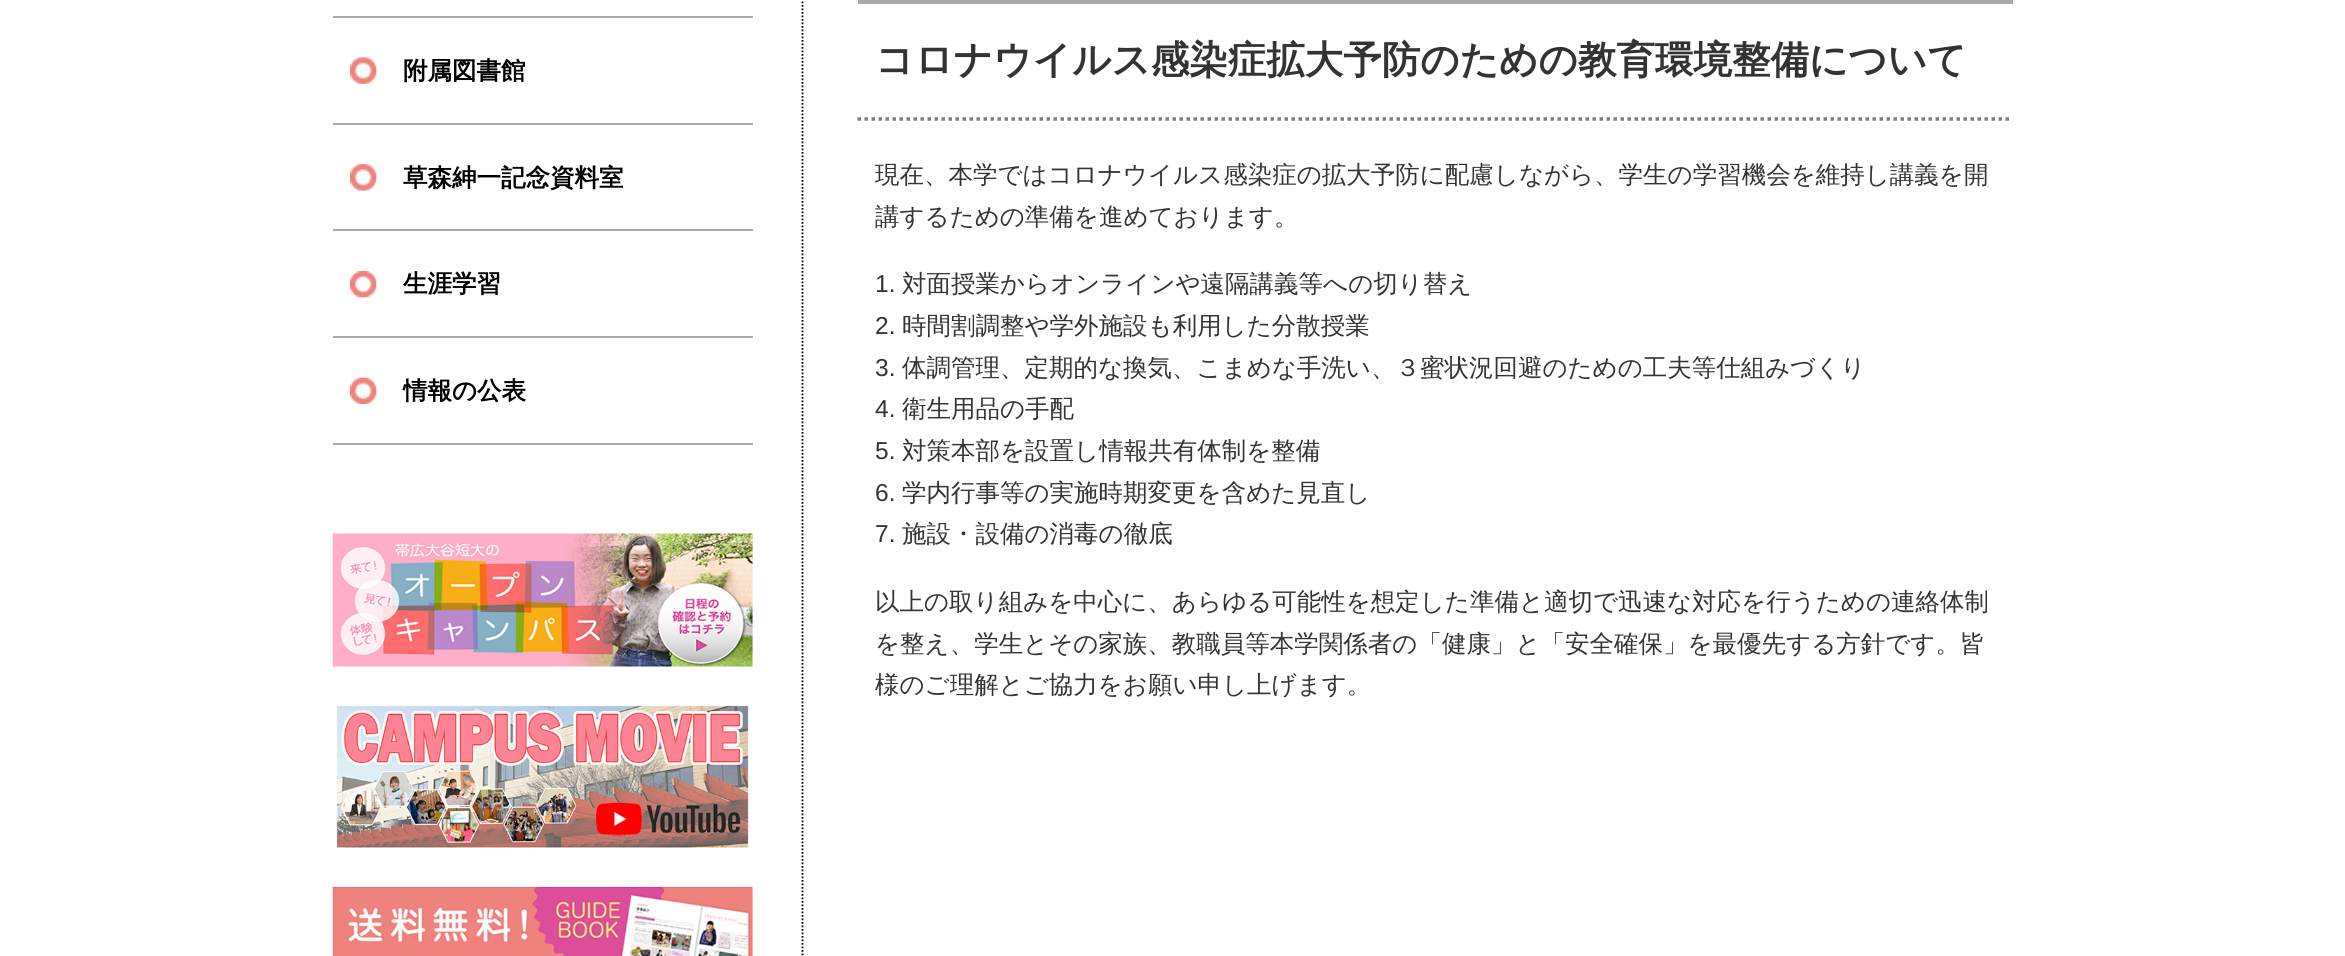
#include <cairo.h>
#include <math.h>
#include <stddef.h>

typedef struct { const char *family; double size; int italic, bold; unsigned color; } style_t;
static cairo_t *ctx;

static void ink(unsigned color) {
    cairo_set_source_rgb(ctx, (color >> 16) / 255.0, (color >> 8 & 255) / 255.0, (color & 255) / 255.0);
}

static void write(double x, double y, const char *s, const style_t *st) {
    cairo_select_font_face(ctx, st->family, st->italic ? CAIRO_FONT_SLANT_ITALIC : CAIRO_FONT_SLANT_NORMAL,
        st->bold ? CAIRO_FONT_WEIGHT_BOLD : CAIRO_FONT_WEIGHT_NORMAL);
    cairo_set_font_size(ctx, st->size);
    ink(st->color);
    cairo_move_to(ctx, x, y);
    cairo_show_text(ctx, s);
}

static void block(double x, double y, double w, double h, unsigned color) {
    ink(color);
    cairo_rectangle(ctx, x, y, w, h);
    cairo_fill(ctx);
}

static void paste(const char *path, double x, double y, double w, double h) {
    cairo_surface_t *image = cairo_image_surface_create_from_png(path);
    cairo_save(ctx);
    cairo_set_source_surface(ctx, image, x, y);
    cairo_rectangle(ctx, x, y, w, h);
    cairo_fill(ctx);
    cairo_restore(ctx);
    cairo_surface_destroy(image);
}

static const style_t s1 = {"WenQuanYi Zen Hei", 24.5, 0, 1, 0x000000};
static const style_t s2 = {"WenQuanYi Zen Hei", 38.5, 0, 1, 0x333333};
static const style_t s3 = {"WenQuanYi Zen Hei Medium", 24.5, 0, 0, 0x333333};
static const style_t s4 = {"Liberation Sans", 24.5, 0, 0, 0x333333};

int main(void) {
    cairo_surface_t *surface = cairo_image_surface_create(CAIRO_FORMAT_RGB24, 2345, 956);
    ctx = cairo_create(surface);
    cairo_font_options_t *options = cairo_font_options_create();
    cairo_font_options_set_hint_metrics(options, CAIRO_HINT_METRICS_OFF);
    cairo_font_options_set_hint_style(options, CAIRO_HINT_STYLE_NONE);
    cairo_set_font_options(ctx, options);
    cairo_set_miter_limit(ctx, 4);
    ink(0xffffff);
    cairo_paint(ctx);
    block(333, 16, 420, 2, 0xaaaaaa);
    paste("pic1.png", 350, 57, 27, 27);
    block(333, 123, 420, 2, 0xaaaaaa);
    write(403, 79, "附属図書館", &s1);
    paste("pic2.png", 350, 164, 27, 27);
    block(333, 229, 420, 2, 0xaaaaaa);
    write(403, 186, "草森紳一記念資料室", &s1);
    paste("pic3.png", 350, 271, 27, 27);
    block(333, 336, 420, 2, 0xaaaaaa);
    write(403, 292, "生涯学習", &s1);
    paste("pic4.png", 350, 377, 27, 27);
    block(333, 443, 420, 2, 0xaaaaaa);
    write(403, 399, "情報の公表", &s1);
    paste("pic5.png", 332, 533, 421, 134);
    paste("pic6.png", 336, 705, 413, 143);
    paste("pic7.png", 332, 887, 421, 69);
    cairo_new_path(ctx);
    cairo_move_to(ctx, 802.5, -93);
    cairo_line_to(ctx, 802.5, 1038);
    cairo_set_line_width(ctx, 1.8);
    cairo_set_dash(ctx, (double[]){1.75, 1.75}, 2, 0);
    cairo_stroke(ctx);
    block(858, 0, 1155, 4, 0xaaaaaa);
    cairo_new_path(ctx);
    cairo_move_to(ctx, 857.5, 119);
    cairo_line_to(ctx, 2012.5, 119);
    ink(0x808080);
    cairo_set_line_width(ctx, 3.5);
    cairo_set_dash(ctx, (double[]){3.5, 3.5}, 2, 0);
    cairo_stroke(ctx);
    write(875, 73, "コロナウイルス感染症拡大予防のための教育環境整備について", &s2);
    write(875, 183, "現在、本学ではコロナウイルス感染症の拡大予防に配慮しながら、学生の学習機会を維持し講義を開", &s3);
    write(875, 225, "講するための準備を進めております。", &s3);
    write(875, 292, "1.", &s4);
    write(902, 292, "対面授業からオンラインや遠隔講義等への切り替え", &s3);
    write(875, 334, "2.", &s4);
    write(902, 334, "時間割調整や学外施設も利用した分散授業", &s3);
    write(875, 376, "3.", &s4);
    write(902, 376, "体調管理、定期的な換気、こまめな手洗い、３蜜状況回避のための工夫等仕組みづくり", &s3);
    write(875, 417, "4.", &s4);
    write(902, 417, "衛生用品の手配", &s3);
    write(875, 459, "5.", &s4);
    write(902, 459, "対策本部を設置し情報共有体制を整備", &s3);
    write(875, 501, "6.", &s4);
    write(902, 501, "学内行事等の実施時期変更を含めた見直し", &s3);
    write(875, 542, "7.", &s4);
    write(902, 542, "施設・設備の消毒の徹底", &s3);
    write(875, 610, "以上の取り組みを中心に、あらゆる可能性を想定した準備と適切で迅速な対応を行うための連絡体制", &s3);
    write(875, 652, "を整え、学生とその家族、教職員等本学関係者の「健康」と「安全確保」を最優先する方針です。皆", &s3);
    write(875, 693, "様のご理解とご協力をお願い申し上げます。", &s3);
    cairo_surface_write_to_png(surface, "screenshot.png");
    cairo_font_options_destroy(options);
    cairo_destroy(ctx);
    cairo_surface_destroy(surface);
    return 0;
}
